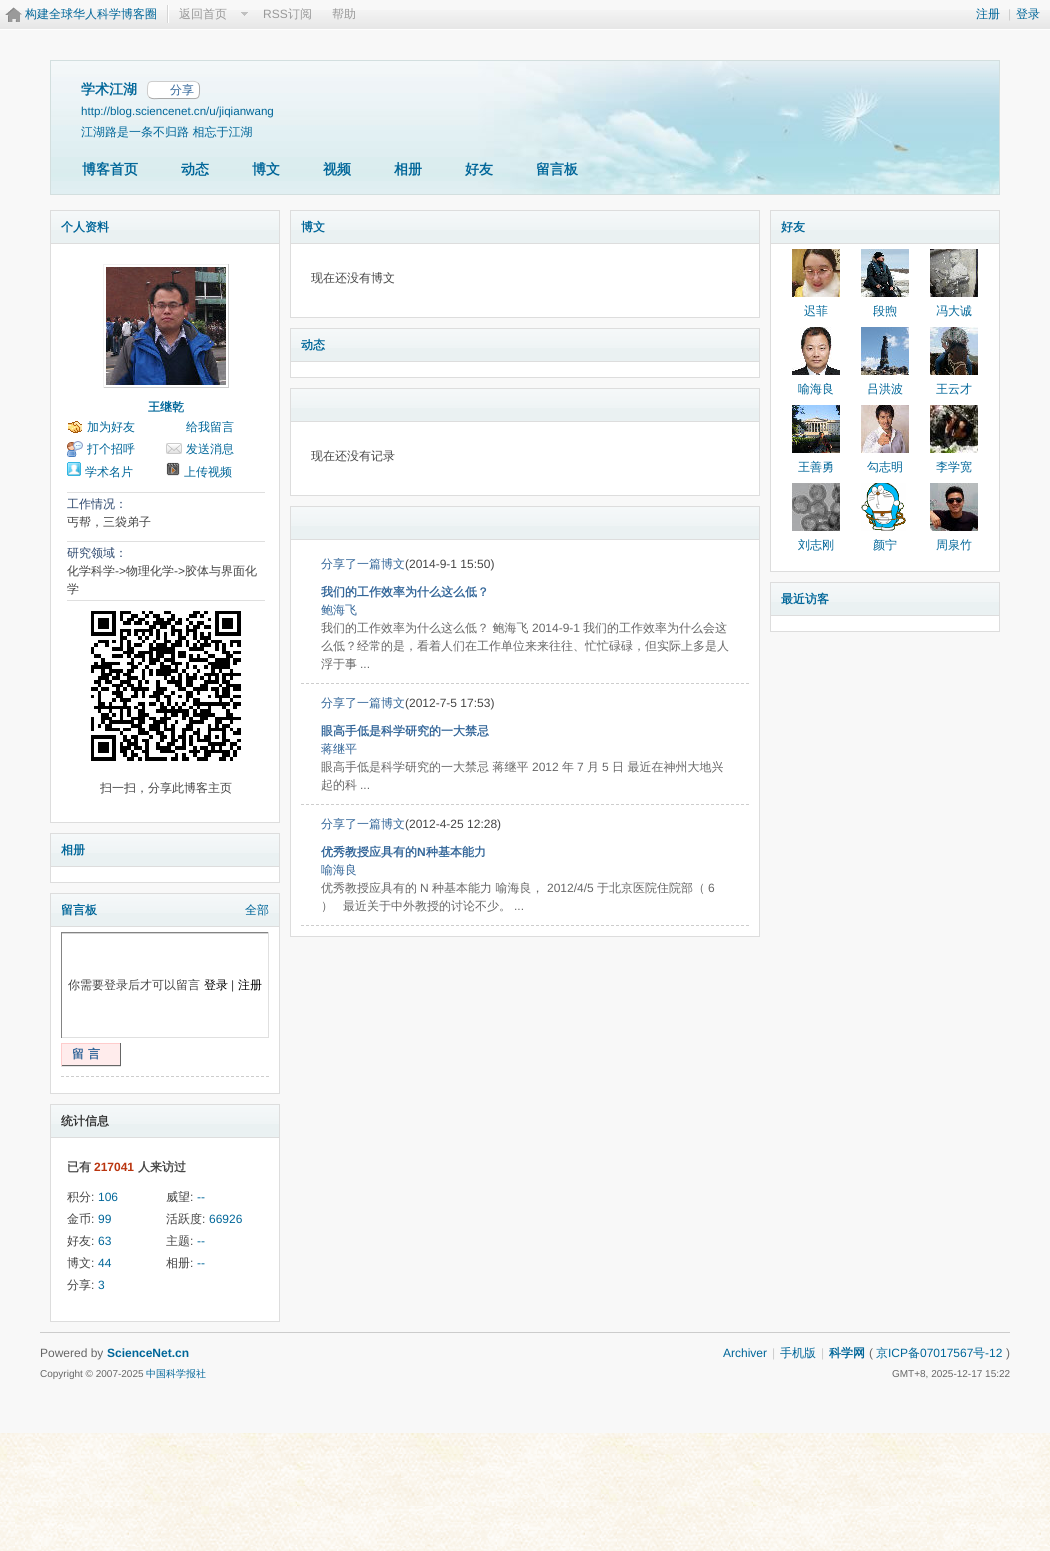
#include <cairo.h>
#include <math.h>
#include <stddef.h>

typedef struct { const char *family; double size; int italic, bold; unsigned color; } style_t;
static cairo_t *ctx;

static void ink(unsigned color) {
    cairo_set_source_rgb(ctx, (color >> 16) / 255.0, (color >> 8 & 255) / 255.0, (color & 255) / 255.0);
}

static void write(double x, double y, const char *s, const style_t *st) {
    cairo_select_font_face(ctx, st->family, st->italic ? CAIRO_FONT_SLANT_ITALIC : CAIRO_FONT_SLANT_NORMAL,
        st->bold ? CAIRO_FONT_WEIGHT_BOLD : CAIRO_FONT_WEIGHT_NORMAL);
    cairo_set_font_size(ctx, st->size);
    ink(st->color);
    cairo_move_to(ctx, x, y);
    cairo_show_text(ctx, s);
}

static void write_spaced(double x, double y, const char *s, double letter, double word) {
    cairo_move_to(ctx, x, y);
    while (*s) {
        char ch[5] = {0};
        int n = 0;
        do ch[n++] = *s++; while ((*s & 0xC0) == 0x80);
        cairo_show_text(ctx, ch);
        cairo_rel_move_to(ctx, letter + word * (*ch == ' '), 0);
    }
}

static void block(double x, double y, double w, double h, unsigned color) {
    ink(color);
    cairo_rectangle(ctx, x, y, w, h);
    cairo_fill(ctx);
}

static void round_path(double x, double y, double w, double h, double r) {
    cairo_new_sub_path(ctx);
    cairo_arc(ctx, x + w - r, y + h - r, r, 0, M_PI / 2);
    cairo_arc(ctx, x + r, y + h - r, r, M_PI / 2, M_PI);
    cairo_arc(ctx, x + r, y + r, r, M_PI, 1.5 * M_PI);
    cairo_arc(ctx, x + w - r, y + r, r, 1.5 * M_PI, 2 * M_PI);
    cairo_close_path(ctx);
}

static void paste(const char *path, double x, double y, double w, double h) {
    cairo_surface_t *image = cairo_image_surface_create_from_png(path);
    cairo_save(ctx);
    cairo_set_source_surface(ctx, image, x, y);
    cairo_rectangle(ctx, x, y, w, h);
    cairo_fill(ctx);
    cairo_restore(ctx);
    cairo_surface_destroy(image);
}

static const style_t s1 = {"WenQuanYi Zen Hei Medium", 12, 0, 0, 0x006699};
static const style_t s2 = {"WenQuanYi Zen Hei Medium", 12, 0, 0, 0x999999};
static const style_t s3 = {"Liberation Sans", 12, 0, 0, 0x999999};
static const style_t s4 = {"Liberation Sans", 12, 0, 0, 0xcccccc};
static const style_t s5 = {"WenQuanYi Zen Hei", 14, 0, 1, 0x006699};
static const style_t s6 = {"WenQuanYi Zen Hei Medium", 12, 0, 0, 0x336699};
static const style_t s7 = {"Liberation Sans", 11.6, 0, 0, 0x006699};
static const style_t s8 = {"WenQuanYi Zen Hei", 12, 0, 1, 0x006699};
static const style_t s9 = {"WenQuanYi Zen Hei Medium", 12, 0, 0, 0x2f496f};
static const style_t s10 = {"WenQuanYi Zen Hei Medium", 12, 0, 0, 0x444444};
static const style_t s11 = {"Liberation Sans", 12, 0, 0, 0x444444};
static const style_t s12 = {"WenQuanYi Zen Hei Medium", 12, 0, 0, 0x000000};
static const style_t s13 = {"WenQuanYi Zen Hei", 12, 0, 1, 0x333333};
static const style_t s14 = {"WenQuanYi Zen Hei", 12, 0, 1, 0x444444};
static const style_t s15 = {"Liberation Sans", 12, 0, 1, 0xba350f};
static const style_t s16 = {"Liberation Sans", 12, 0, 0, 0x006699};
static const style_t s17 = {"WenQuanYi Zen Hei", 12, 0, 1, 0x336699};
static const style_t s18 = {"WenQuanYi Zen Hei Medium", 12, 0, 0, 0x666666};
static const style_t s19 = {"Liberation Sans", 12, 0, 0, 0x666666};
static const style_t s20 = {"Liberation Sans", 12, 0, 1, 0x336699};
static const style_t s21 = {"Liberation Sans", 12, 0, 1, 0x006699};
static const style_t s22 = {"Liberation Sans", 10, 0, 0, 0x666666};
static const style_t s23 = {"WenQuanYi Zen Hei Medium", 10, 0, 0, 0x006699};

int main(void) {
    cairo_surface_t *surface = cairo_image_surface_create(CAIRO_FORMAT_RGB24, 1050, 1551);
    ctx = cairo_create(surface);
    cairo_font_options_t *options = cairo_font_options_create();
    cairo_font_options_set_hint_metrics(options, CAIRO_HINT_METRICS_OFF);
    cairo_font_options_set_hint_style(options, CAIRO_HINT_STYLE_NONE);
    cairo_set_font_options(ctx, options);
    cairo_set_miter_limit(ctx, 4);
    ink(0xffffff);
    cairo_paint(ctx);
    paste("pic1.png", 0, 1433, 1050, 118);
    block(0, 0, 1050, 1433, 0xf8f8f8);
    paste("pic2.png", 0, 10, 1050, 20);
    paste("pic3.png", 5, 7, 17, 15);
    block(168, 5, 1, 18, 0xffffff);
    block(167, 5, 1, 18, 0xd5d5d5);
    write(25, 18, "构建全球华人科学博客圈", &s1);
    write(179, 18, "返回首页", &s2);
    paste("pic4.png", 241, 12, 7, 4);
    write(263, 18, "RSS", &s3);
    write(288, 18, "订阅", &s2);
    write(332, 18, "帮助", &s2);
    write(976, 18, "注册", &s1);
    write(1008, 18, "|", &s4);
    write(1016, 18, "登录", &s1);
    paste("pic5.png", 51, 61, 948, 133);
    cairo_rectangle(ctx, 50.5, 60.5, 949, 134);
    ink(0xd3dfdf);
    cairo_set_line_width(ctx, 1);
    cairo_stroke(ctx);
    write(81, 94, "学术江湖", &s5);
    ink(0xffffff);
    round_path(147, 81, 53, 18, 5);
    cairo_fill(ctx);
    cairo_new_path(ctx);
    cairo_move_to(ctx, 198, 83);
    cairo_curve_to(ctx, 200, 85, 199.5, 88, 199.5, 91);
    cairo_curve_to(ctx, 199.5, 100, 196.5, 98.5, 188, 98.5);
    cairo_line_to(ctx, 159, 98.5);
    cairo_curve_to(ctx, 157, 98.5, 151.5, 99.5, 149, 97);
    ink(0xa9a9a9);
    cairo_stroke(ctx);
    cairo_new_path(ctx);
    cairo_move_to(ctx, 149, 97);
    cairo_curve_to(ctx, 147, 95, 147.5, 92, 147.5, 89);
    cairo_curve_to(ctx, 147.5, 80, 150.5, 81.5, 159, 81.5);
    cairo_line_to(ctx, 188, 81.5);
    cairo_curve_to(ctx, 190, 81.5, 195.5, 80.5, 198, 83);
    ink(0xcccccc);
    cairo_stroke(ctx);
    write(170, 94, "分享", &s6);
    write(81, 115, "http://blog.sciencenet.cn/u/jiqianwang", &s7);
    write(81, 136, "江湖路是一条不归路 相忘于江湖", &s1);
    write(82, 174, "博客首页", &s5);
    write(181, 174, "动态", &s5);
    write(252, 174, "博文", &s5);
    write(323, 174, "视频", &s5);
    write(394, 174, "相册", &s5);
    write(465, 174, "好友", &s5);
    write(536, 174, "留言板", &s5);
    block(51, 244, 228, 578, 0xffffff);
    cairo_rectangle(ctx, 50.5, 210.5, 229, 612);
    ink(0xdddddd);
    cairo_stroke(ctx);
    block(51, 230, 228, 13, 0xeaf1f2);
    paste("pic6.png", 51, 211, 228, 19);
    block(51, 243, 228, 1, 0xdddddd);
    write(61, 231, "个人资料", &s8);
    block(103, 264, 126, 1, 0xf2f2f2);
    block(228, 264, 1, 124, 0xcdcdcd);
    block(103, 387, 126, 1, 0xcdcdcd);
    block(103, 264, 1, 124, 0xf2f2f2);
    paste("pic7.png", 106, 267, 120, 118);
    write(148, 411, "王继乾", &s8);
    paste("pic8.png", 68, 421, 14, 12);
    write(87, 431, "加为好友", &s1);
    write(186, 431, "给我留言", &s1);
    paste("pic9.png", 67, 441, 16, 16);
    write(87, 453, "打个招呼", &s1);
    paste("pic10.png", 166, 443, 16, 11);
    write(186, 453, "发送消息", &s1);
    paste("pic11.png", 67, 462, 14, 14);
    write(85, 476, "学术名片", &s1);
    paste("pic12.png", 166, 462, 14, 14);
    write(184, 476, "上传视频", &s1);
    block(67, 492, 198, 1, 0xdfdfdf);
    write(67, 508, "工作情况：", &s9);
    write(67, 526, "丐帮，三袋弟子", &s10);
    block(67, 541, 198, 1, 0xdfdfdf);
    block(67, 600, 198, 1, 0xdfdfdf);
    write(67, 557, "研究领域：", &s9);
    write(67, 575, "化学科学", &s10);
    write(115, 575, "->", &s11);
    write(126, 575, "物理化学", &s10);
    write(174, 575, "->", &s11);
    write(185, 575, "胶体与界面化", &s10);
    write(67, 593, "学", &s10);
    paste("pic13.png", 91, 611, 150, 150);
    write(100, 792, "扫一扫，分享此博客主页", &s10);
    block(51, 867, 228, 15, 0xffffff);
    cairo_rectangle(ctx, 50.5, 833.5, 229, 49);
    ink(0xdddddd);
    cairo_stroke(ctx);
    block(51, 853, 228, 13, 0xeaf1f2);
    paste("pic6.png", 51, 834, 228, 19);
    block(51, 866, 228, 1, 0xdddddd);
    write(61, 854, "相册", &s8);
    block(51, 927, 228, 166, 0xffffff);
    cairo_rectangle(ctx, 50.5, 893.5, 229, 200);
    ink(0xdddddd);
    cairo_stroke(ctx);
    block(51, 913, 228, 13, 0xeaf1f2);
    paste("pic6.png", 51, 894, 228, 19);
    block(51, 926, 228, 1, 0xdddddd);
    write(61, 914, "留言板", &s8);
    write(245, 914, "全部", &s1);
    block(61, 933, 208, 1, 0xd4d4d4);
    block(61, 932, 208, 1, 0x848484);
    block(268, 932, 1, 106, 0xe0e0e0);
    block(61, 1037, 208, 1, 0xe0e0e0);
    block(61, 932, 1, 106, 0x848484);
    write(68, 989, "你需要登录后才可以留言", &s10);
    write(204, 989, "登录", &s12);
    write(231, 989, "|", &s11);
    write(238, 989, "注册", &s12);
    block(61, 1066, 60, 1, 0xe5e5e5);
    block(62, 1044, 58, 21, 0xffecec);
    block(61, 1043, 60, 1, 0xffcccc);
    block(120, 1043, 1, 23, 0x666666);
    block(61, 1065, 60, 1, 0x666666);
    block(61, 1043, 1, 23, 0xffcccc);
    cairo_select_font_face(ctx, "WenQuanYi Zen Hei", CAIRO_FONT_SLANT_NORMAL, CAIRO_FONT_WEIGHT_BOLD);
    ink(0x336699);
    write_spaced(72, 1058, "留言", 4, 0);
    cairo_new_path(ctx);
    cairo_move_to(ctx, 61, 1076.5);
    cairo_line_to(ctx, 269, 1076.5);
    ink(0xcdcdcd);
    cairo_set_dash(ctx, (double[]){3, 2}, 2, 0);
    cairo_stroke(ctx);
    block(51, 1138, 228, 183, 0xffffff);
    cairo_rectangle(ctx, 50.5, 1104.5, 229, 217);
    ink(0xdddddd);
    cairo_set_dash(ctx, NULL, 0, 0);
    cairo_stroke(ctx);
    block(51, 1124, 228, 13, 0xeaf1f2);
    paste("pic6.png", 51, 1105, 228, 19);
    block(51, 1137, 228, 1, 0xdddddd);
    write(61, 1125, "统计信息", &s13);
    write(67, 1171, "已有", &s14);
    write(94, 1171, "217041", &s15);
    write(138, 1171, "人来访过", &s14);
    write(67, 1201, "积分", &s10);
    write(91, 1201, ":", &s11);
    write(98, 1201, "106", &s16);
    write(166, 1201, "威望", &s10);
    write(190, 1201, ":", &s11);
    write(197, 1201, "--", &s16);
    write(67, 1223, "金币", &s10);
    write(91, 1223, ":", &s11);
    write(98, 1223, "99", &s16);
    write(166, 1223, "活跃度", &s10);
    write(202, 1223, ":", &s11);
    write(209, 1223, "66926", &s16);
    write(67, 1245, "好友", &s10);
    write(91, 1245, ":", &s11);
    write(98, 1245, "63", &s16);
    write(166, 1245, "主题", &s10);
    write(190, 1245, ":", &s11);
    write(197, 1245, "--", &s16);
    write(67, 1267, "博文", &s10);
    write(91, 1267, ":", &s11);
    write(98, 1267, "44", &s16);
    write(166, 1267, "相册", &s10);
    write(190, 1267, ":", &s11);
    write(197, 1267, "--", &s16);
    write(67, 1289, "分享", &s10);
    write(91, 1289, ":", &s11);
    write(98, 1289, "3", &s16);
    block(291, 244, 468, 73, 0xffffff);
    cairo_rectangle(ctx, 290.5, 210.5, 469, 107);
    ink(0xdddddd);
    cairo_stroke(ctx);
    block(291, 230, 468, 13, 0xeaf1f2);
    paste("pic14.png", 291, 211, 468, 19);
    block(291, 243, 468, 1, 0xdddddd);
    write(301, 231, "博文", &s8);
    write(311, 282, "现在还没有博文", &s10);
    block(291, 362, 468, 15, 0xffffff);
    cairo_rectangle(ctx, 290.5, 328.5, 469, 49);
    ink(0xdddddd);
    cairo_stroke(ctx);
    block(291, 348, 468, 13, 0xeaf1f2);
    paste("pic14.png", 291, 329, 468, 19);
    block(291, 361, 468, 1, 0xdddddd);
    write(301, 349, "动态", &s8);
    block(291, 422, 468, 73, 0xffffff);
    cairo_rectangle(ctx, 290.5, 388.5, 469, 107);
    ink(0xdddddd);
    cairo_stroke(ctx);
    block(291, 408, 468, 13, 0xeaf1f2);
    paste("pic14.png", 291, 389, 468, 19);
    block(291, 421, 468, 1, 0xdddddd);
    write(311, 460, "现在还没有记录", &s10);
    block(291, 540, 468, 396, 0xffffff);
    cairo_rectangle(ctx, 290.5, 506.5, 469, 430);
    ink(0xdddddd);
    cairo_stroke(ctx);
    block(291, 526, 468, 13, 0xeaf1f2);
    paste("pic14.png", 291, 507, 468, 19);
    block(291, 539, 468, 1, 0xdddddd);
    cairo_new_path(ctx);
    cairo_move_to(ctx, 301, 683.5);
    cairo_line_to(ctx, 749, 683.5);
    ink(0xcdcdcd);
    cairo_set_dash(ctx, (double[]){3, 2}, 2, 0);
    cairo_stroke(ctx);
    write(321, 568, "分享了一篇博文", &s6);
    write(405, 568, "(2014-9-1 15:50)", &s11);
    write(321, 596, "我们的工作效率为什么这么低？", &s17);
    write(321, 614, "鲍海飞", &s6);
    write(321, 632, "我们的工作效率为什么这么低？ 鲍海飞", &s18);
    write(532, 632, "2014-9-1", &s19);
    write(583, 632, "我们的工作效率为什么会这", &s18);
    write(321, 650, "么低？经常的是，看着人们在工作单位来来往往、忙忙碌碌，但实际上多是人", &s18);
    write(321, 668, "浮于事", &s18);
    write(360, 668, "...", &s19);
    cairo_new_path(ctx);
    cairo_move_to(ctx, 301, 804.5);
    cairo_line_to(ctx, 749, 804.5);
    ink(0xcdcdcd);
    cairo_stroke(ctx);
    write(321, 707, "分享了一篇博文", &s6);
    write(405, 707, "(2012-7-5 17:53)", &s11);
    write(321, 735, "眼高手低是科学研究的一大禁忌", &s17);
    write(321, 753, "蒋继平", &s6);
    write(321, 771, "眼高手低是科学研究的一大禁忌 蒋继平", &s18);
    write(532, 771, "2012", &s19);
    write(562, 771, "年", &s18);
    write(577, 771, "7", &s19);
    write(587, 771, "月", &s18);
    write(602, 771, "5", &s19);
    write(612, 771, "日 最近在神州大地兴", &s18);
    write(321, 789, "起的科", &s18);
    write(360, 789, "...", &s19);
    cairo_new_path(ctx);
    cairo_move_to(ctx, 301, 925.5);
    cairo_line_to(ctx, 749, 925.5);
    ink(0xcdcdcd);
    cairo_stroke(ctx);
    write(321, 828, "分享了一篇博文", &s6);
    write(405, 828, "(2012-4-25 12:28)", &s11);
    write(321, 856, "优秀教授应具有的", &s17);
    write(417, 856, "N", &s20);
    write(426, 856, "种基本能力", &s17);
    write(321, 874, "喻海良", &s6);
    write(321, 892, "优秀教授应具有的", &s18);
    write(420, 892, "N", &s19);
    write(432, 892, "种基本能力 喻海良，", &s18);
    write(547, 892, "2012/4/5", &s19);
    write(597, 892, "于北京医院住院部（", &s18);
    write(708, 892, "6", &s19);
    write(321, 910, "）", &s18);
    write(343, 910, "最近关于中外教授的讨论不少。", &s18);
    write(514, 910, "...", &s19);
    block(771, 244, 228, 327, 0xffffff);
    cairo_rectangle(ctx, 770.5, 210.5, 229, 361);
    ink(0xdddddd);
    cairo_set_dash(ctx, NULL, 0, 0);
    cairo_stroke(ctx);
    block(771, 230, 228, 13, 0xeaf1f2);
    paste("pic6.png", 771, 211, 228, 19);
    block(771, 243, 228, 1, 0xdddddd);
    write(781, 231, "好友", &s8);
    paste("pic15.png", 792, 249, 48, 48);
    write(804, 315, "迟菲", &s1);
    paste("pic16.png", 861, 249, 48, 48);
    write(873, 315, "段煦", &s1);
    paste("pic17.png", 930, 249, 48, 48);
    write(936, 315, "冯大诚", &s1);
    paste("pic18.png", 792, 327, 48, 48);
    write(798, 393, "喻海良", &s1);
    paste("pic19.png", 861, 327, 48, 48);
    write(867, 393, "吕洪波", &s1);
    paste("pic20.png", 930, 327, 48, 48);
    write(936, 393, "王云才", &s1);
    paste("pic21.png", 792, 405, 48, 48);
    write(798, 471, "王善勇", &s1);
    paste("pic22.png", 861, 405, 48, 48);
    write(867, 471, "勾志明", &s1);
    paste("pic23.png", 930, 405, 48, 48);
    write(936, 471, "李学宽", &s1);
    paste("pic24.png", 792, 483, 48, 48);
    write(798, 549, "刘志刚", &s1);
    paste("pic25.png", 861, 483, 45, 48);
    write(873, 549, "颜宁", &s1);
    paste("pic26.png", 930, 483, 48, 48);
    write(936, 549, "周泉竹", &s1);
    block(771, 616, 228, 15, 0xffffff);
    cairo_rectangle(ctx, 770.5, 582.5, 229, 49);
    ink(0xdddddd);
    cairo_stroke(ctx);
    block(771, 602, 228, 13, 0xeaf1f2);
    paste("pic6.png", 771, 583, 228, 19);
    block(771, 615, 228, 1, 0xdddddd);
    write(781, 603, "最近访客", &s8);
    block(40, 1332, 970, 1, 0xcccccc);
    write(40, 1357, "Powered by", &s19);
    write(107, 1357, "ScienceNet.cn", &s21);
    write(40, 1377, "Copyright © 2007-2025", &s22);
    write(146, 1377, "中国科学报社", &s23);
    write(723, 1357, "Archiver", &s16);
    write(772, 1357, "|", &s4);
    write(780, 1357, "手机版", &s1);
    write(821, 1357, "|", &s4);
    write(829, 1357, "科学网", &s8);
    write(869, 1357, "(", &s19);
    write(876, 1357, "京", &s1);
    write(888, 1357, "ICP", &s16);
    write(908, 1357, "备", &s1);
    write(920, 1357, "07017567", &s16);
    write(973, 1357, "号", &s1);
    write(985, 1357, "-12", &s16);
    write(1006, 1357, ")", &s19);
    write(892, 1377, "GMT+8, 2025-12-17 15:22", &s22);
    cairo_surface_write_to_png(surface, "screenshot.png");
    cairo_font_options_destroy(options);
    cairo_destroy(ctx);
    cairo_surface_destroy(surface);
    return 0;
}
